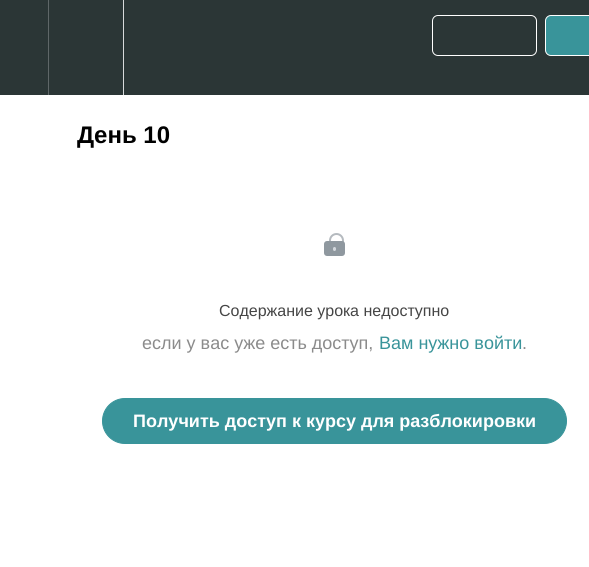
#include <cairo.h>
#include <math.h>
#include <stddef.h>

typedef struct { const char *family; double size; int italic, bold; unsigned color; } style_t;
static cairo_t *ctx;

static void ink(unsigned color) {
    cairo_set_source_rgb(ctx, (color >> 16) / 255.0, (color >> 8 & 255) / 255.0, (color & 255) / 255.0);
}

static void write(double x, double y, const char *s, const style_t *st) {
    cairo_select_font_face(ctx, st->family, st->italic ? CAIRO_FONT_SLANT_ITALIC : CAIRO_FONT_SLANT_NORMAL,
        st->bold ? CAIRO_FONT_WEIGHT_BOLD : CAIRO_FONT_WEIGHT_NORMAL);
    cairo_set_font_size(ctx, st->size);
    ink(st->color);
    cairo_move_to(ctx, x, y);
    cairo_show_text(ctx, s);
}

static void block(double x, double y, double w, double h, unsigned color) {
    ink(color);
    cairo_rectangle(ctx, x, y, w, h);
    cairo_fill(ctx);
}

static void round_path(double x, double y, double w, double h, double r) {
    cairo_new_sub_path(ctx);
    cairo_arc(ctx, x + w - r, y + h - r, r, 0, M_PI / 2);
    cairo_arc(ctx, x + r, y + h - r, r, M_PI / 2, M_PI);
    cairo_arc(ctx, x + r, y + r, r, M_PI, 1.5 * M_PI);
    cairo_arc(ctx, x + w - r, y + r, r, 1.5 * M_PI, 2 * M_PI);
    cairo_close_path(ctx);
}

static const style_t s1 = {"Liberation Sans", 24, 0, 1, 0x000000};
static const style_t s2 = {"Liberation Sans", 16, 0, 0, 0x454545};
static const style_t s3 = {"Liberation Sans", 18, 0, 0, 0x8b8b8b};
static const style_t s4 = {"Liberation Sans", 18, 0, 0, 0x39949a};
static const style_t s5 = {"Liberation Sans", 18, 0, 1, 0xffffff};

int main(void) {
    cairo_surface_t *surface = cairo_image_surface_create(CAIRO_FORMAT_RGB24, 589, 567);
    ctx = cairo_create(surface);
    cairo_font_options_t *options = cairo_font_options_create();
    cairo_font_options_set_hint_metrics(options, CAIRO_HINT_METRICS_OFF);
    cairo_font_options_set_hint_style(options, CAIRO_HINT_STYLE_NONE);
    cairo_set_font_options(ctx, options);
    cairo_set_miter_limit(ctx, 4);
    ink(0xffffff);
    cairo_paint(ctx);
    block(0, 0, 589, 95, 0x2b3636);
    block(123, 0, 1, 95, 0xd7dadb);
    block(48, 0, 1, 95, 0x5f6768);
    round_path(432.5, 15.5, 104, 40, 5.5);
    ink(0xffffff);
    cairo_set_line_width(ctx, 1);
    cairo_stroke(ctx);
    ink(0x39949a);
    round_path(545.5, 15.5, 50, 40, 5.5);
    cairo_fill_preserve(ctx);
    ink(0xffffff);
    cairo_stroke(ctx);
    write(77, 143, "День 10", &s1);
    round_path(330, 234, 13, 20, 6.5);
    ink(0xb5babf);
    cairo_set_line_width(ctx, 2);
    cairo_stroke(ctx);
    ink(0x8f989f);
    round_path(324, 241, 21, 15, 3);
    cairo_fill(ctx);
    ink(0xd3d7dc);
    round_path(333, 247, 3, 4, 1.5);
    cairo_fill(ctx);
    write(219, 316, "Содержание урока недоступно", &s2);
    write(142, 349, "если у вас уже есть доступ,", &s3);
    write(379, 349, "Вам нужно войти", &s4);
    write(522, 349, ".", &s3);
    ink(0x39949a);
    round_path(102.5, 398.5, 464, 45, 22.5);
    cairo_fill_preserve(ctx);
    cairo_set_line_width(ctx, 1);
    cairo_stroke(ctx);
    write(133, 427, "Получить доступ к курсу для разблокировки", &s5);
    cairo_surface_write_to_png(surface, "screenshot.png");
    cairo_font_options_destroy(options);
    cairo_destroy(ctx);
    cairo_surface_destroy(surface);
    return 0;
}
